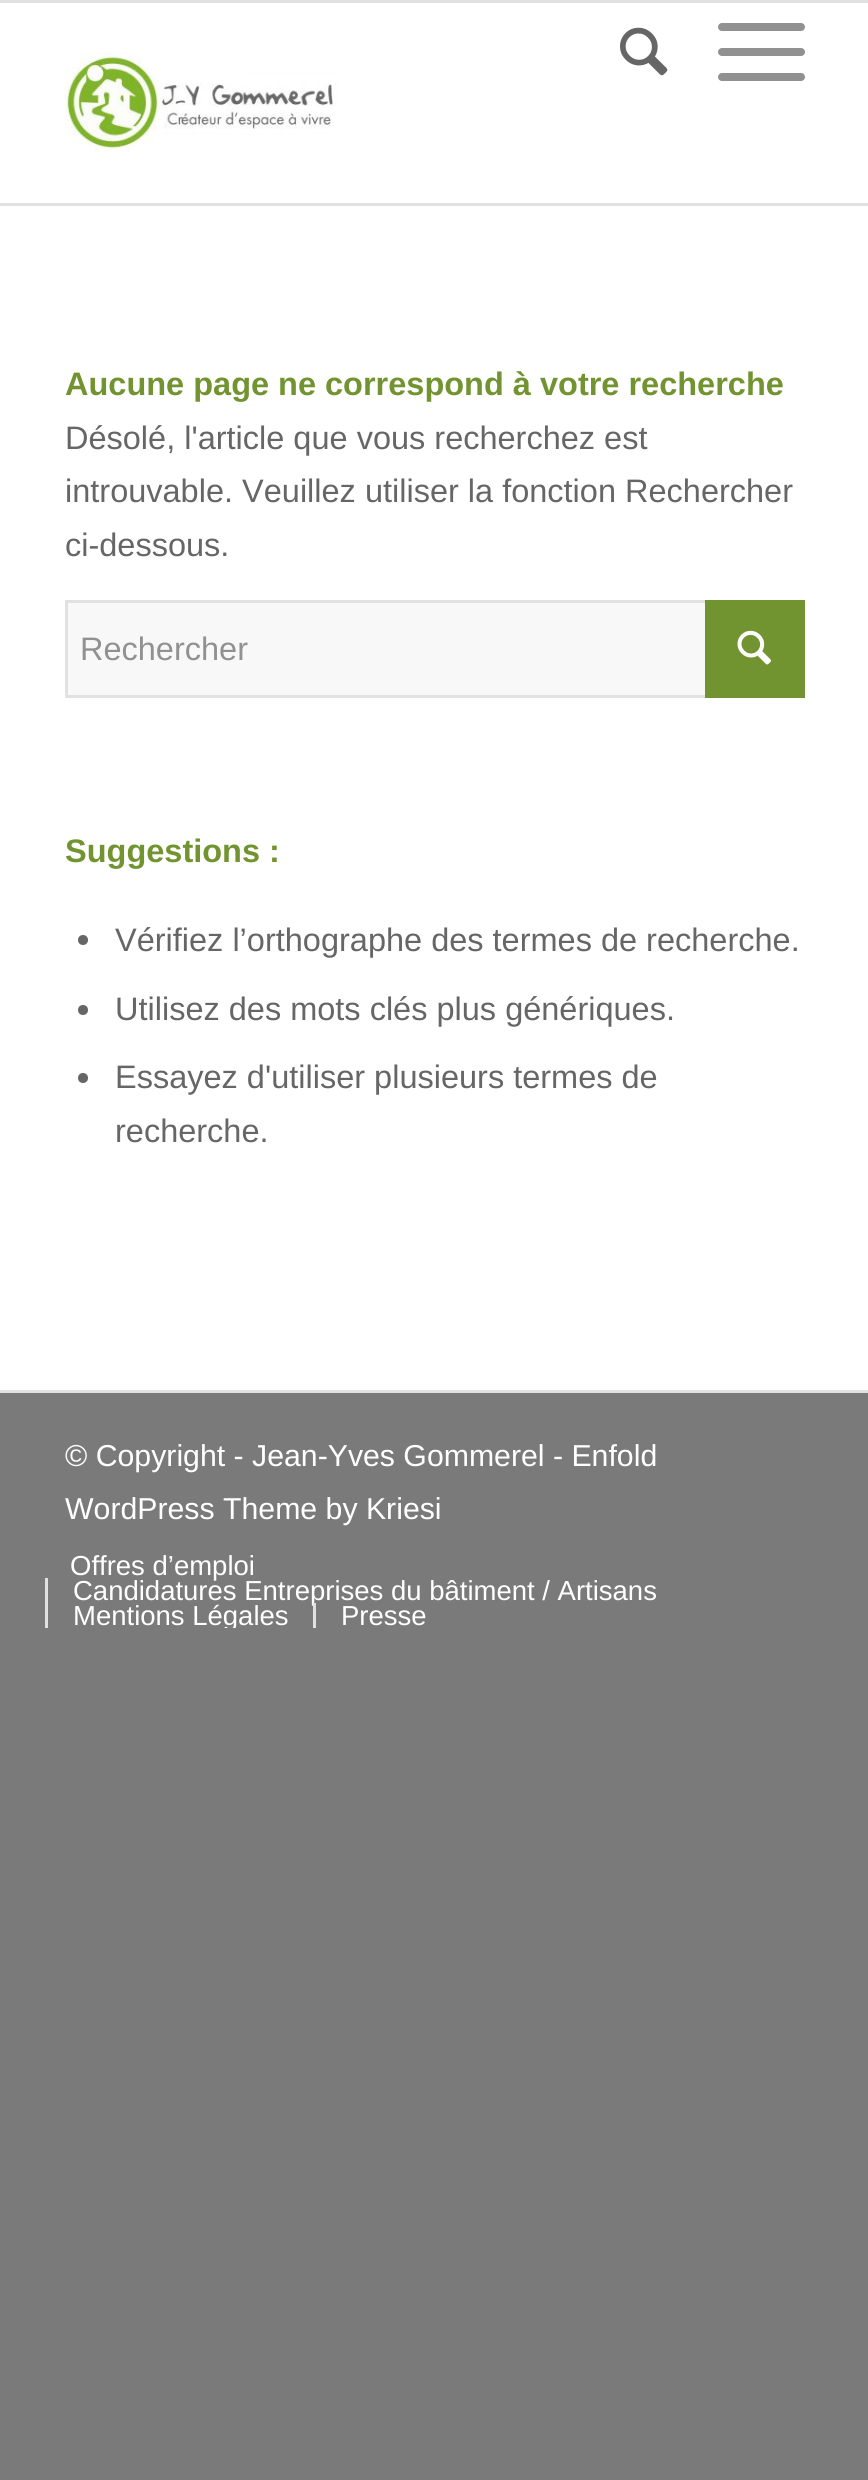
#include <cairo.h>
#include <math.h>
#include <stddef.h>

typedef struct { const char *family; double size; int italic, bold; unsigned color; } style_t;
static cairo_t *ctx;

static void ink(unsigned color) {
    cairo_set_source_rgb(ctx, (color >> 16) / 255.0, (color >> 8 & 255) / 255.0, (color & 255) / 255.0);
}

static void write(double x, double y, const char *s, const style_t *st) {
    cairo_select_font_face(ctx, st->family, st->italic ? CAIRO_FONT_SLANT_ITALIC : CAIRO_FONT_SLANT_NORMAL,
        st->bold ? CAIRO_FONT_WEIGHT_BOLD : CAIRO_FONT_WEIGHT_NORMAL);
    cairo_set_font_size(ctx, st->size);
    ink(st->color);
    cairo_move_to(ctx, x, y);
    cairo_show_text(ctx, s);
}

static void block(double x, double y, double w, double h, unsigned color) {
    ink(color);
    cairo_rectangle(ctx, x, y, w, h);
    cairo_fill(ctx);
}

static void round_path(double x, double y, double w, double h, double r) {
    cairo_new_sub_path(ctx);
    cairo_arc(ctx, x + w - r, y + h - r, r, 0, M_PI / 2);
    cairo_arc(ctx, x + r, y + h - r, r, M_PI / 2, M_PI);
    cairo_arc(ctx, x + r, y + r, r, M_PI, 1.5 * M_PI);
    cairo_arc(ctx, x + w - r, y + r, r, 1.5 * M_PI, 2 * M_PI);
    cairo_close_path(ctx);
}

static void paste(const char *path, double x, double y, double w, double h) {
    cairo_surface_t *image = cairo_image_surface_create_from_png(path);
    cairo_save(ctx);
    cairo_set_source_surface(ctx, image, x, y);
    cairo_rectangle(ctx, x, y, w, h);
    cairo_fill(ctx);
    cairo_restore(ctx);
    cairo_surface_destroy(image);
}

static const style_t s1 = {"Liberation Sans", 32.5, 0, 1, 0x719430};
static const style_t s2 = {"Liberation Sans", 32.5, 0, 0, 0x666666};
static const style_t s3 = {"Liberation Sans", 32.5, 0, 0, 0x919191};
static const style_t s4 = {"Liberation Sans", 30.25, 0, 0, 0xffffff};
static const style_t s5 = {"Liberation Sans", 27.5, 0, 0, 0xffffff};

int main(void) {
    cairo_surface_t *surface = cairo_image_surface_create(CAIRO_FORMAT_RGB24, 868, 2480);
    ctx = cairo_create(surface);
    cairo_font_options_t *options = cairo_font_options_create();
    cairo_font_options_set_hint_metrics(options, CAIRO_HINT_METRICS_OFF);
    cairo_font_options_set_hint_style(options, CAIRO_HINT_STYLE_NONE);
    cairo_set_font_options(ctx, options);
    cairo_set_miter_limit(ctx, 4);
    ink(0x7a7a7a);
    cairo_paint(ctx);
    block(0, 0, 868, 3, 0xe1e1e1);
    block(0, 203, 868, 3, 0xe1e1e1);
    block(0, 3, 868, 200, 0xffffff);
    paste("pic1.png", 65, 52, 273, 101);
    paste("pic2.png", 620, 27, 48, 49);
    ink(0x919191);
    round_path(718, 48, 87, 8, 4);
    cairo_fill(ctx);
    round_path(718, 23, 87, 8, 4);
    cairo_fill(ctx);
    round_path(718, 73, 87, 8, 4);
    cairo_fill(ctx);
    block(0, 206, 868, 1184, 0xffffff);
    write(65, 395, "Aucune page ne correspond à votre recherche", &s1);
    write(65, 449, "Désolé, l'article que vous recherchez est", &s2);
    write(65, 502, "introuvable. Veuillez utiliser la fonction Rechercher", &s2);
    write(65, 556, "ci-dessous.", &s2);
    block(68, 603, 637, 92, 0xf8f8f8);
    cairo_rectangle(ctx, 66.5, 601.5, 737, 95);
    ink(0xe1e1e1);
    cairo_set_line_width(ctx, 3);
    cairo_stroke(ctx);
    write(80, 660, "Rechercher", &s3);
    block(705, 600, 100, 98, 0x719430);
    paste("pic3.png", 737, 630, 34, 35);
    write(65, 862, "Suggestions :", &s1);
    ink(0x666666);
    cairo_new_path(ctx);
    cairo_arc(ctx, 83, 940, 5, 0, 2 * M_PI);
    cairo_fill(ctx);
    write(115, 951, "Vérifiez l’orthographe des termes de recherche.", &s2);
    cairo_new_path(ctx);
    cairo_arc(ctx, 83, 1010, 5, 0, 2 * M_PI);
    cairo_fill(ctx);
    write(115, 1020, "Utilisez des mots clés plus génériques.", &s2);
    cairo_new_path(ctx);
    cairo_arc(ctx, 83, 1078, 5, 0, 2 * M_PI);
    cairo_fill(ctx);
    write(115, 1088, "Essayez d'utiliser plusieurs termes de", &s2);
    write(115, 1142, "recherche.", &s2);
    block(0, 1390, 868, 3, 0xe1e1e1);
    write(65, 1466, "© Copyright - Jean-Yves Gommerel - Enfold", &s4);
    write(65, 1519, "WordPress Theme by Kriesi", &s4);
    write(70, 1575, "Offres d’emploi", &s5);
    block(45, 1578, 3, 50, 0xe1e1e1);
    write(73, 1600, "Candidatures Entreprises du bâtiment / Artisans", &s5);
    cairo_save(ctx);
    cairo_rectangle(ctx, 28, 1538, 740, 90);
    cairo_clip(ctx);
    write(73, 1625, "Mentions Légales", &s5);
    cairo_restore(ctx);
    block(313, 1603, 3, 25, 0xe1e1e1);
    write(341, 1625, "Presse", &s5);
    cairo_surface_write_to_png(surface, "screenshot.png");
    cairo_font_options_destroy(options);
    cairo_destroy(ctx);
    cairo_surface_destroy(surface);
    return 0;
}
